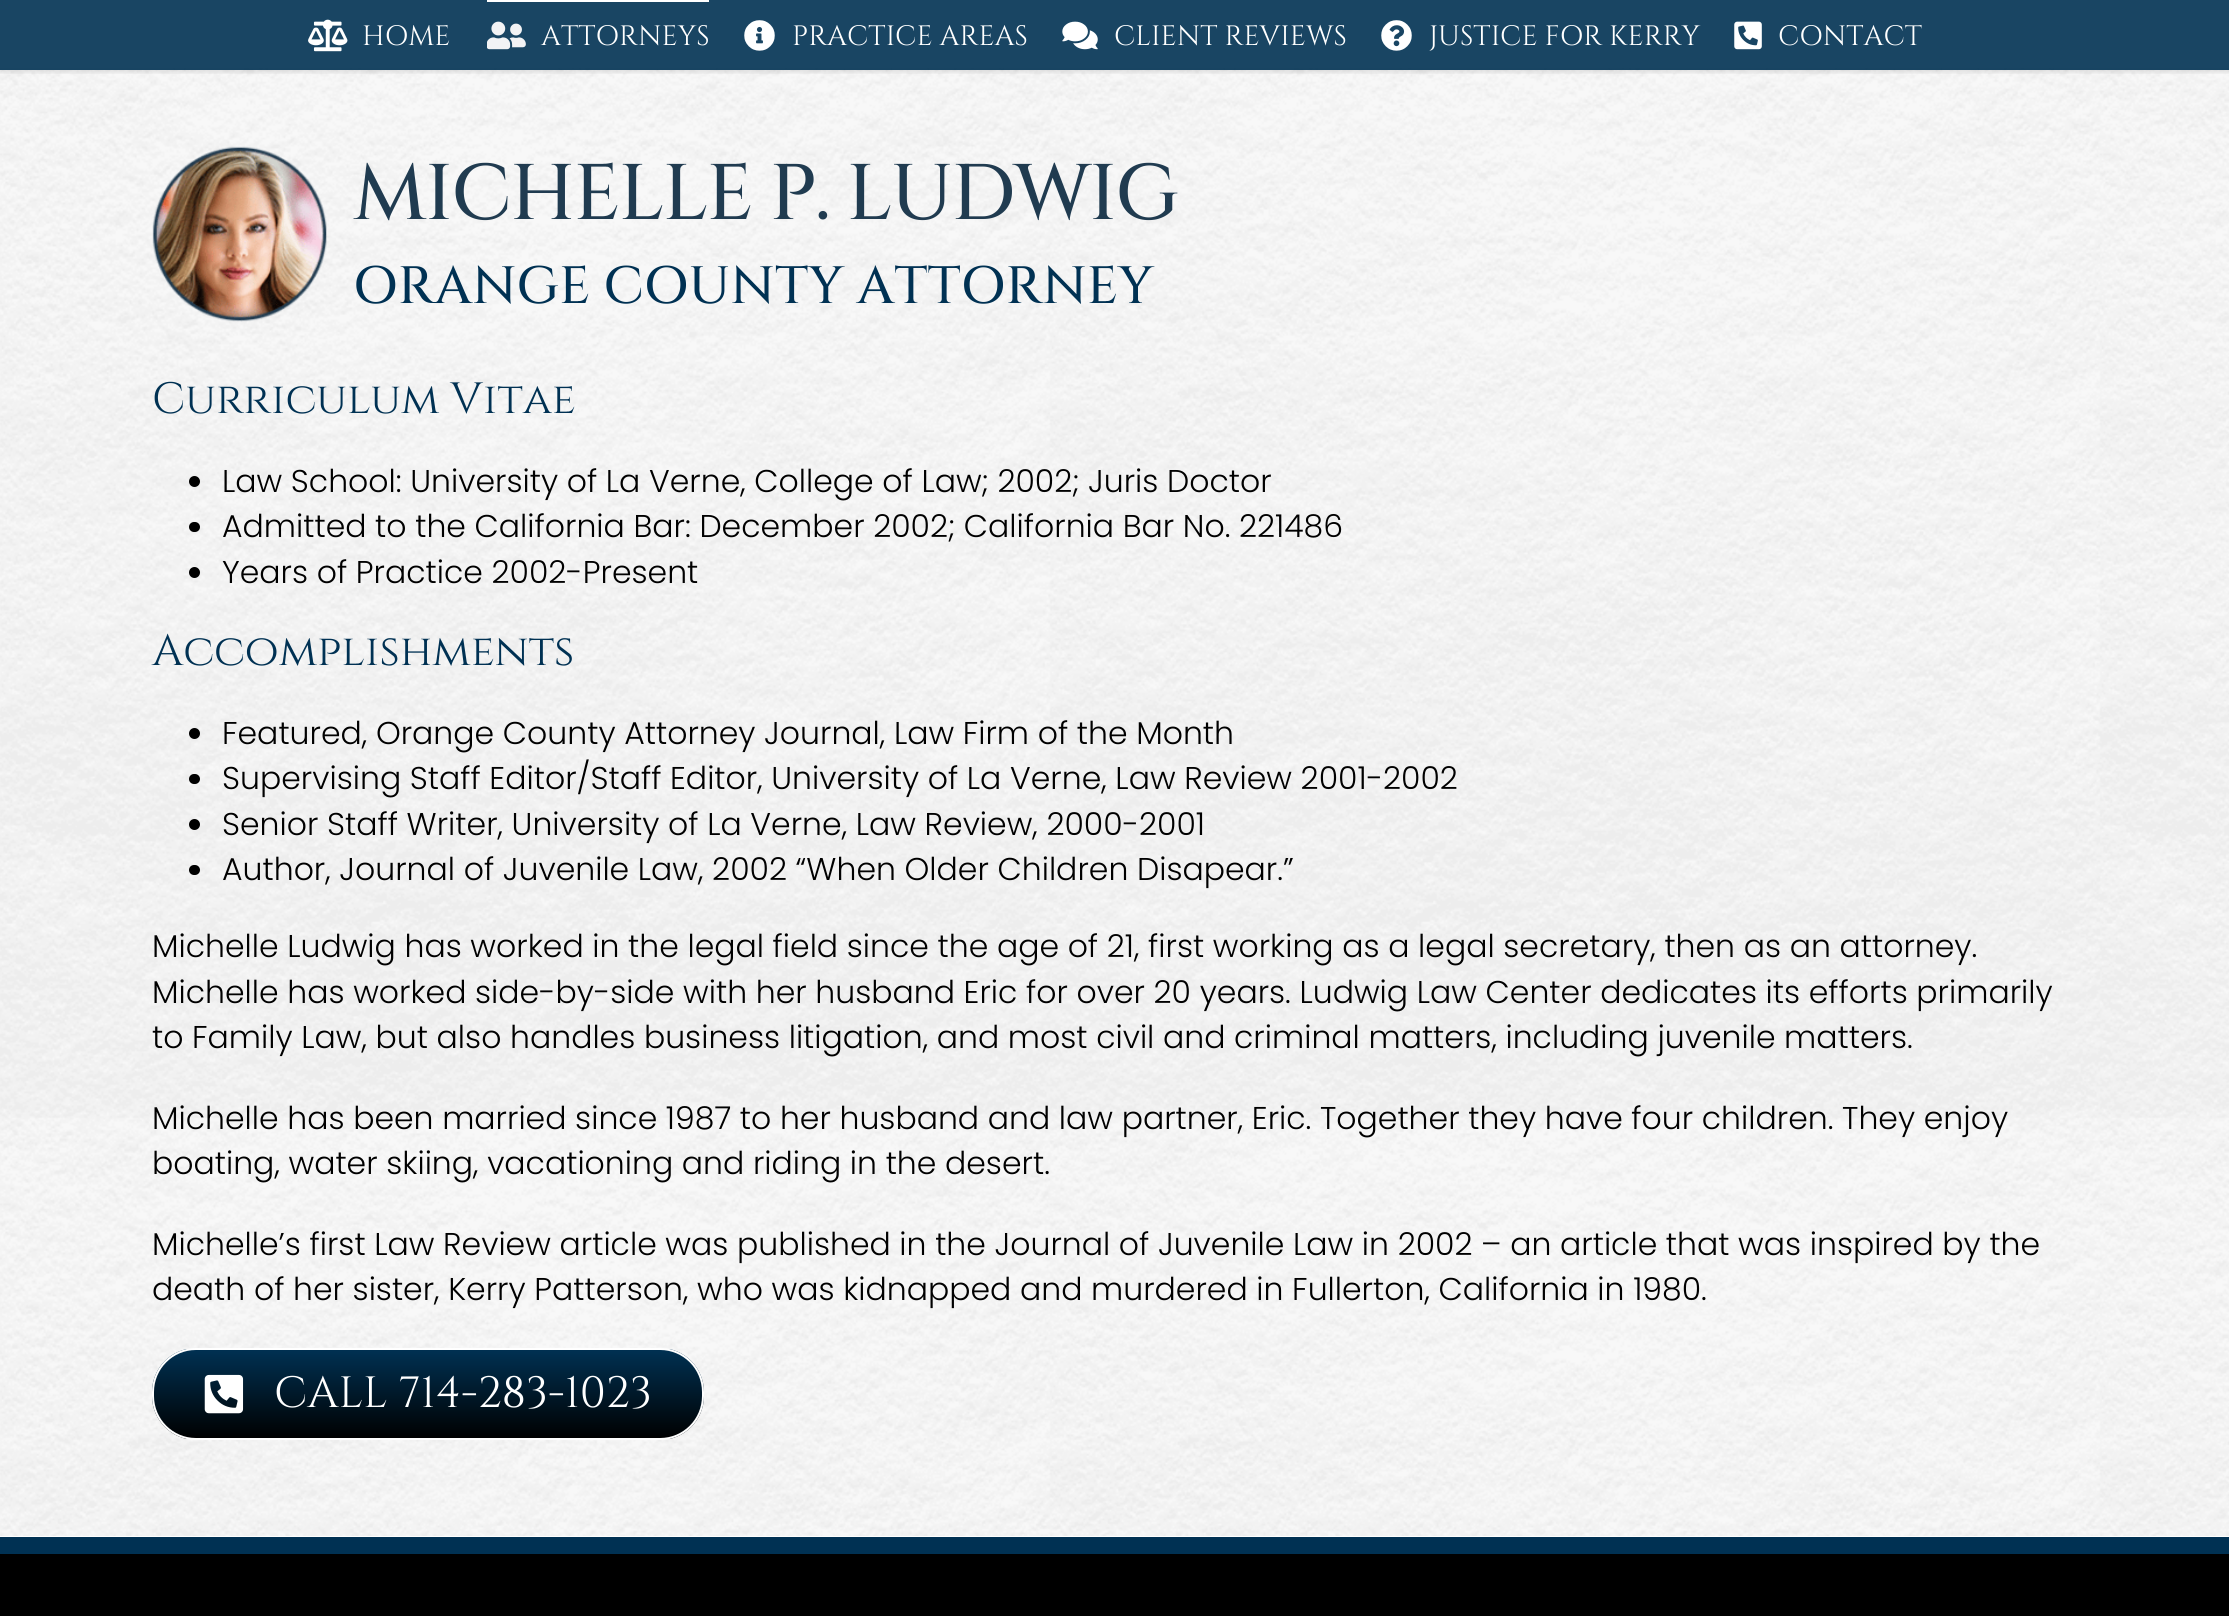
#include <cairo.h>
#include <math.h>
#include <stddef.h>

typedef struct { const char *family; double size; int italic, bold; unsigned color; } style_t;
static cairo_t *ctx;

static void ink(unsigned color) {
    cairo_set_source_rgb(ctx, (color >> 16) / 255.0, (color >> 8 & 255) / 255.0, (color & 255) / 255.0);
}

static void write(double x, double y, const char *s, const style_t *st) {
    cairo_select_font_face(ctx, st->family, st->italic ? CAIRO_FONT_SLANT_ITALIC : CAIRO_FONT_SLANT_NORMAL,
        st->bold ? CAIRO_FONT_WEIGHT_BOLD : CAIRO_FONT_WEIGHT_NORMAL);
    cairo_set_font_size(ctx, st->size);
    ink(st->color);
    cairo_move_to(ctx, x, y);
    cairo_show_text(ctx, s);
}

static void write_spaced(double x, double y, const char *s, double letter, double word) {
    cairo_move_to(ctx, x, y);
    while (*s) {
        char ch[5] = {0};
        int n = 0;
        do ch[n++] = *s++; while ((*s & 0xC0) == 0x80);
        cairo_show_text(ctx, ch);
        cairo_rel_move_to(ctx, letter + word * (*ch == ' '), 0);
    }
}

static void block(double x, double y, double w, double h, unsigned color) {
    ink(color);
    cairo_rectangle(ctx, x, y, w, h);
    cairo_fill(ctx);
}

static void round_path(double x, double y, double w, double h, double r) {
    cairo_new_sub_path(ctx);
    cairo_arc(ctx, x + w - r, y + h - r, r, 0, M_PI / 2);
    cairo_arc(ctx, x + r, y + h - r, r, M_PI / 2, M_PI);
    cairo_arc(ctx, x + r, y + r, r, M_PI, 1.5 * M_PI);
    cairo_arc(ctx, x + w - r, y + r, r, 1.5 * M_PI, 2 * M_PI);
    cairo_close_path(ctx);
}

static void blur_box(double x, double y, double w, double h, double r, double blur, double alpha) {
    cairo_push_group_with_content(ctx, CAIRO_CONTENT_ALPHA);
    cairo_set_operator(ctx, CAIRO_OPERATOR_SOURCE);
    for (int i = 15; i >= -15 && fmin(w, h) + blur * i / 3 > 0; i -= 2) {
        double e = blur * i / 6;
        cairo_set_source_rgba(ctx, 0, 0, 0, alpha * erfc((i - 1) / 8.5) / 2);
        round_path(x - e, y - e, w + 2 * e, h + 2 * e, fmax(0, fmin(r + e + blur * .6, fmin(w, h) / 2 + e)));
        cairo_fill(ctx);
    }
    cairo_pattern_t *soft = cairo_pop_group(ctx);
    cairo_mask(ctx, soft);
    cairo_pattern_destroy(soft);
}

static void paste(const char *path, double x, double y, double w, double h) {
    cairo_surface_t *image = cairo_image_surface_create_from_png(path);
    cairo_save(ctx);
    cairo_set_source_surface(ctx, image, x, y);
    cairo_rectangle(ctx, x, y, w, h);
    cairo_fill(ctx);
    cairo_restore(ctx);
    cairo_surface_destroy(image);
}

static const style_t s1 = {"Cinzel", 28, 0, 0, 0xffffff};
static const style_t s2 = {"Cinzel Medium", 52.5, 0, 0, 0x003153};
static const style_t s3 = {"Cinzel", 43.75, 0, 0, 0x003153};
static const style_t s4 = {"Poppins Light", 31.5, 0, 0, 0x000000};
static const style_t s5 = {"Cinzel", 43.75, 0, 0, 0xffffff};

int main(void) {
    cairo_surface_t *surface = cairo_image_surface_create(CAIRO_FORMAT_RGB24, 2229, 1616);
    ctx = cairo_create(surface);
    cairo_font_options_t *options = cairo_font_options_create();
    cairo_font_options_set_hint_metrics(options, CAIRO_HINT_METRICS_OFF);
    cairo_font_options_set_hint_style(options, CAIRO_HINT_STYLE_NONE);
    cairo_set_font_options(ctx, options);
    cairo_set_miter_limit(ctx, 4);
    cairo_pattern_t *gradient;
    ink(0xffffff);
    cairo_paint(ctx);
    paste("pic7.png", 0, 67, 2229, 1469);
    cairo_save(ctx);
    cairo_rectangle(ctx, 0, 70, 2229, 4);
    cairo_clip(ctx);
    ink(0x000000);
    blur_box(0, 2, 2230, 70, 0, 2.5, 0.12);
    cairo_restore(ctx);
    cairo_set_source_rgba(ctx, 0, 0.192, 0.325, 0.9);
    cairo_rectangle(ctx, 0, 0, 2229, 70);
    cairo_fill(ctx);
    paste("pic1.png", 308, 19, 40, 33);
    write(362, 45, "HOME", &s1);
    block(487, 0, 222, 2, 0xffffff);
    paste("pic2.png", 487, 21, 39, 29);
    write(541, 45, "ATTORNEYS", &s1);
    paste("pic3.png", 744, 20, 31, 31);
    write(792, 45, "PRACTICE AREAS", &s1);
    paste("pic4.png", 1062, 21, 36, 29);
    write(1114, 45, "CLIENT REVIEWS", &s1);
    paste("pic5.png", 1381, 20, 31, 31);
    write(1429, 45, "JUSTICE FOR KERRY", &s1);
    paste("pic6.png", 1734, 21, 28, 29);
    write(1778, 45, "CONTACT", &s1);
    paste("pic8.png", 152, 146, 175, 176);
    cairo_select_font_face(ctx, "Cinzel Medium", CAIRO_FONT_SLANT_NORMAL, CAIRO_FONT_WEIGHT_NORMAL);
    cairo_set_font_size(ctx, 78.75);
    ink(0x203b50);
    write_spaced(353, 219, "MICHELLE P. LUDWIG", -1.75, 0);
    write(353, 303, "ORANGE COUNTY ATTORNEY", &s2);
    write(152, 413, "Curriculum Vitae", &s3);
    ink(0x000000);
    cairo_new_path(ctx);
    cairo_arc(ctx, 194.5, 481.5, 5.5, 0, 2 * M_PI);
    cairo_fill(ctx);
    write(222, 492, "Law School: University of La Verne, College of Law; 2002; Juris Doctor", &s4);
    round_path(189, 522, 11, 10, 5);
    cairo_fill(ctx);
    write(222, 537, "Admitted to the California Bar: December 2002; California Bar No. 221486", &s4);
    cairo_new_path(ctx);
    cairo_arc(ctx, 194.5, 572.5, 5.5, 0, 2 * M_PI);
    cairo_fill(ctx);
    write(222, 583, "Years of Practice 2002-Present", &s4);
    write(152, 665, "Accomplishments", &s3);
    ink(0x000000);
    cairo_new_path(ctx);
    cairo_arc(ctx, 194.5, 733.5, 5.5, 0, 2 * M_PI);
    cairo_fill(ctx);
    write(222, 744, "Featured, Orange County Attorney Journal, Law Firm of the Month", &s4);
    round_path(189, 774, 11, 10, 5);
    cairo_fill(ctx);
    write(222, 789, "Supervising Staff Editor/Staff Editor, University of La Verne, Law Review 2001-2002", &s4);
    cairo_new_path(ctx);
    cairo_arc(ctx, 194.5, 824.5, 5.5, 0, 2 * M_PI);
    cairo_fill(ctx);
    write(222, 835, "Senior Staff Writer, University of La Verne, Law Review, 2000-2001", &s4);
    round_path(189, 865, 11, 10, 5);
    cairo_fill(ctx);
    write(222, 880, "Author, Journal of Juvenile Law, 2002 “When Older Children Disapear.”", &s4);
    write(152, 957, "Michelle Ludwig has worked in the legal field since the age of 21, first working as a legal secretary, then as an attorney.", &s4);
    write(152, 1003, "Michelle has worked side-by-side with her husband Eric for over 20 years. Ludwig Law Center dedicates its efforts primarily", &s4);
    write(152, 1048, "to Family Law, but also handles business litigation, and most civil and criminal matters, including juvenile matters.", &s4);
    write(152, 1129, "Michelle has been married since 1987 to her husband and law partner, Eric. Together they have four children. They enjoy", &s4);
    write(152, 1174, "boating, water skiing, vacationing and riding in the desert.", &s4);
    write(152, 1255, "Michelle’s first Law Review article was published in the Journal of Juvenile Law in 2002 – an article that was inspired by the", &s4);
    write(152, 1300, "death of her sister, Kerry Patterson, who was kidnapped and murdered in Fullerton, California in 1980.", &s4);
    cairo_save(ctx);
    round_path(152, 1348, 552, 92, 44);
    cairo_clip(ctx);
    gradient = cairo_pattern_create_linear(428, 1349, 428, 1439);
    cairo_pattern_add_color_stop_rgba(gradient, 0, 0, 0.192, 0.325, 1);
    cairo_pattern_add_color_stop_rgba(gradient, 1, 0, 0, 0, 1);
    cairo_set_source(ctx, gradient);
    cairo_pattern_destroy(gradient);
    cairo_rectangle(ctx, 152, 1349, 552, 90);
    cairo_fill(ctx);
    cairo_restore(ctx);
    round_path(153, 1349, 550, 90, 43);
    ink(0xffffff);
    cairo_stroke(ctx);
    paste("pic9.png", 204, 1374, 40, 40);
    write(274, 1407, "CALL 714-283-1023", &s5);
    block(0, 1554, 2229, 62, 0x000000);
    block(0, 1537, 2229, 17, 0x003153);
    cairo_surface_write_to_png(surface, "screenshot.png");
    cairo_font_options_destroy(options);
    cairo_destroy(ctx);
    cairo_surface_destroy(surface);
    return 0;
}
